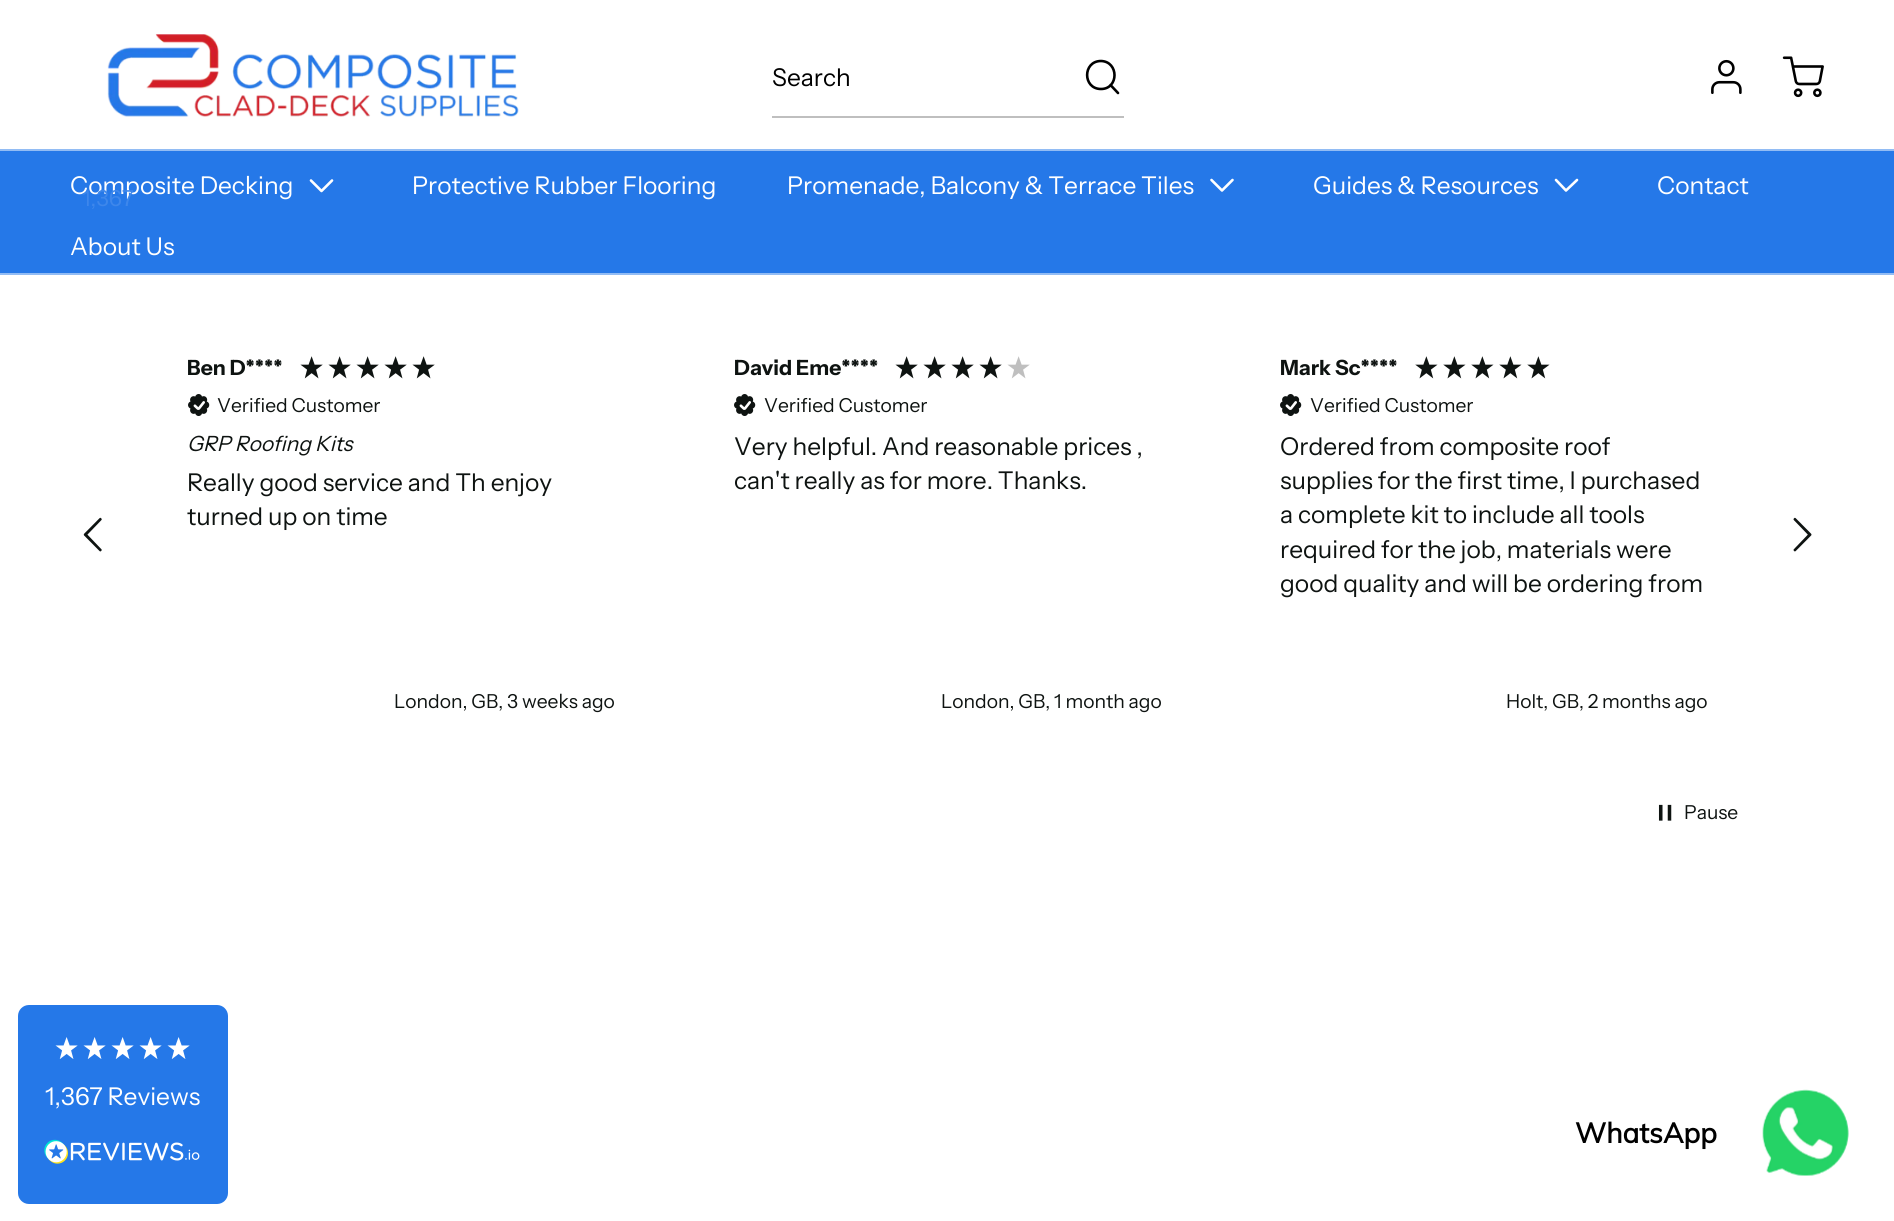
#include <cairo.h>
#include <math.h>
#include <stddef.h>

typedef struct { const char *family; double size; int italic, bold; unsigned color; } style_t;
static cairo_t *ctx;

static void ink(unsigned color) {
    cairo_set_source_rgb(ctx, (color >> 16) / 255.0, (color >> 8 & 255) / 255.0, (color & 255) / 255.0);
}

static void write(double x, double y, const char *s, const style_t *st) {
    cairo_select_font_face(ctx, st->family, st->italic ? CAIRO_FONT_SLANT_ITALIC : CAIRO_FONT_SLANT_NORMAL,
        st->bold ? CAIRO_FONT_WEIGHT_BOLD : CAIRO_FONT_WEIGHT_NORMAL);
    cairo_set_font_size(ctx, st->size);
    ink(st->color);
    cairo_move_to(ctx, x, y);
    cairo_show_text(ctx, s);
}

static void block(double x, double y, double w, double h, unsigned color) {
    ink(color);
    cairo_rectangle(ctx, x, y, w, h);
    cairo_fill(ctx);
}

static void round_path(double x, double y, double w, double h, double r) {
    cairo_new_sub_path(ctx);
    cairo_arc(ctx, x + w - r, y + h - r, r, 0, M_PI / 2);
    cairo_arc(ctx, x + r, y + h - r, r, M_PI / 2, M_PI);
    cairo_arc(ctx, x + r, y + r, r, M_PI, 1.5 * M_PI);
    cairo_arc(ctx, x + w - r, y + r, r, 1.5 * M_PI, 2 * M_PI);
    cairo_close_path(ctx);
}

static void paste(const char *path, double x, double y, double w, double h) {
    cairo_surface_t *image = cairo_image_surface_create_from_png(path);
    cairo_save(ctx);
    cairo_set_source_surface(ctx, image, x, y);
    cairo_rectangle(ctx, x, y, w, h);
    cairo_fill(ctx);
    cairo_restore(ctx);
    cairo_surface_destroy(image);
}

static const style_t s1 = {"Instrument Sans", 24.5, 0, 0, 0x000000};
static const style_t s2 = {"Instrument Sans", 24.5, 0, 0, 0xffffff};
static const style_t s3 = {"Instrument Sans", 22, 0, 0, 0x3e87eb};
static const style_t s4 = {"Instrument Sans", 21, 0, 1, 0x0e1311};
static const style_t s5 = {"Instrument Sans", 19.25, 0, 0, 0x0e1311};
static const style_t s6 = {"Instrument Sans", 21, 1, 0, 0x0e1311};
static const style_t s7 = {"Instrument Sans", 24.5, 0, 0, 0x0e1311};
static const style_t s8 = {"Muli", 28, 0, 1, 0x000000};

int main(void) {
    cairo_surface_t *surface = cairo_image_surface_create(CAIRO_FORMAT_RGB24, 1894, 1221);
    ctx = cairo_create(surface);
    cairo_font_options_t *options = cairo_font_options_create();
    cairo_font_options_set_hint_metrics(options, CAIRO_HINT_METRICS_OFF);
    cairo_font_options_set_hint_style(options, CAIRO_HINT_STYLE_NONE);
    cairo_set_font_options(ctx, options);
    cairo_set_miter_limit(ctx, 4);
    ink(0xffffff);
    cairo_paint(ctx);
    paste("pic1.png", 107, 34, 412, 83);
    write(772, 86, "Search", &s1);
    cairo_new_path(ctx);
    cairo_move_to(ctx, 1101, 89);
    cairo_curve_to(ctx, 1119, 89, 1119, 61.5, 1101, 61);
    cairo_curve_to(ctx, 1082.5, 61, 1082.5, 89, 1101, 89);
    cairo_close_path(ctx);
    cairo_move_to(ctx, 1118, 93);
    cairo_line_to(ctx, 1110.5, 85);
    cairo_set_line_width(ctx, 2.6);
    cairo_set_line_cap(ctx, CAIRO_LINE_CAP_ROUND);
    cairo_set_line_join(ctx, CAIRO_LINE_JOIN_ROUND);
    cairo_stroke(ctx);
    block(772, 116, 352, 2, 0xbfbfbf);
    paste("pic2.png", 1711, 59, 31, 35);
    paste("pic3.png", 1782, 56, 42, 42);
    block(0, 151, 1894, 122, 0x2578e8);
    block(0, 149, 1894, 2, 0x92bcf4);
    block(0, 273, 1894, 2, 0x92bcf4);
    write(70, 194, "Composite Decking", &s2);
    cairo_new_path(ctx);
    cairo_move_to(ctx, 311, 180.5);
    cairo_line_to(ctx, 321.5, 191);
    cairo_line_to(ctx, 332, 180.5);
    cairo_stroke(ctx);
    write(412, 194, "Protective Rubber Flooring", &s2);
    write(787, 194, "Promenade, Balcony & Terrace Tiles", &s2);
    cairo_new_path(ctx);
    cairo_move_to(ctx, 1211.5, 180);
    cairo_line_to(ctx, 1222, 190.5);
    cairo_line_to(ctx, 1232.5, 180);
    cairo_stroke(ctx);
    write(1313, 194, "Guides & Resources", &s2);
    cairo_new_path(ctx);
    cairo_move_to(ctx, 1556, 180);
    cairo_line_to(ctx, 1566, 190.5);
    cairo_line_to(ctx, 1577, 180);
    cairo_stroke(ctx);
    write(1657, 194, "Contact", &s2);
    write(70, 255, "About Us", &s2);
    write(82, 206, "1,367", &s3);
    ink(0x2578e8);
    round_path(18, 1005, 210, 199, 11);
    cairo_fill(ctx);
    paste("pic4.png", 55, 1037, 23, 22);
    paste("pic4.png", 83, 1037, 23, 22);
    paste("pic4.png", 111, 1037, 23, 22);
    paste("pic4.png", 139, 1037, 23, 22);
    paste("pic4.png", 167, 1037, 23, 22);
    write(45, 1105, "1,367 Reviews", &s2);
    paste("pic5.png", 44, 1139, 156, 25);
    paste("pic6.png", 83, 517, 19, 35);
    write(187, 375, "Ben D****", &s4);
    paste("pic7.png", 300, 356, 23, 23);
    paste("pic7.png", 328, 356, 23, 23);
    paste("pic7.png", 356, 356, 23, 23);
    paste("pic7.png", 384, 356, 23, 23);
    paste("pic7.png", 412, 356, 23, 23);
    paste("pic8.png", 188, 394, 22, 22);
    write(217, 412, "Verified Customer", &s5);
    write(187, 451, "GRP Roofing Kits", &s6);
    write(187, 491, "Really good service and Th enjoy", &s7);
    write(187, 525, "turned up on time", &s7);
    write(394, 708, "London, GB, 3 weeks ago", &s5);
    write(734, 375, "David Eme****", &s4);
    paste("pic7.png", 895, 356, 23, 23);
    paste("pic7.png", 923, 356, 23, 23);
    paste("pic7.png", 951, 356, 23, 23);
    paste("pic7.png", 979, 356, 23, 23);
    paste("pic9.png", 1007, 356, 23, 23);
    paste("pic8.png", 734, 394, 22, 22);
    write(764, 412, "Verified Customer", &s5);
    write(734, 455, "Very helpful. And reasonable prices ,", &s7);
    write(734, 489, "can't really as for more. Thanks.", &s7);
    write(941, 708, "London, GB, 1 month ago", &s5);
    write(1280, 375, "Mark Sc****", &s4);
    paste("pic10.png", 1415, 356, 23, 23);
    paste("pic10.png", 1443, 356, 23, 23);
    paste("pic10.png", 1471, 356, 23, 23);
    paste("pic10.png", 1499, 356, 23, 23);
    paste("pic10.png", 1527, 356, 23, 23);
    paste("pic8.png", 1280, 394, 22, 22);
    write(1310, 412, "Verified Customer", &s5);
    write(1280, 455, "Ordered from composite roof", &s7);
    write(1280, 489, "supplies for the first time, I purchased", &s7);
    write(1280, 523, "a complete kit to include all tools", &s7);
    write(1280, 558, "required for the job, materials were", &s7);
    write(1280, 592, "good quality and will be ordering from", &s7);
    write(1506, 708, "Holt, GB, 2 months ago", &s5);
    paste("pic11.png", 1793, 517, 19, 35);
    paste("pic12.png", 1658, 804, 14, 17);
    write(1684, 819, "Pause", &s5);
    paste("pic13.png", 1762, 1089, 87, 87);
    write(1575, 1143, "WhatsApp", &s8);
    cairo_surface_write_to_png(surface, "screenshot.png");
    cairo_font_options_destroy(options);
    cairo_destroy(ctx);
    cairo_surface_destroy(surface);
    return 0;
}
